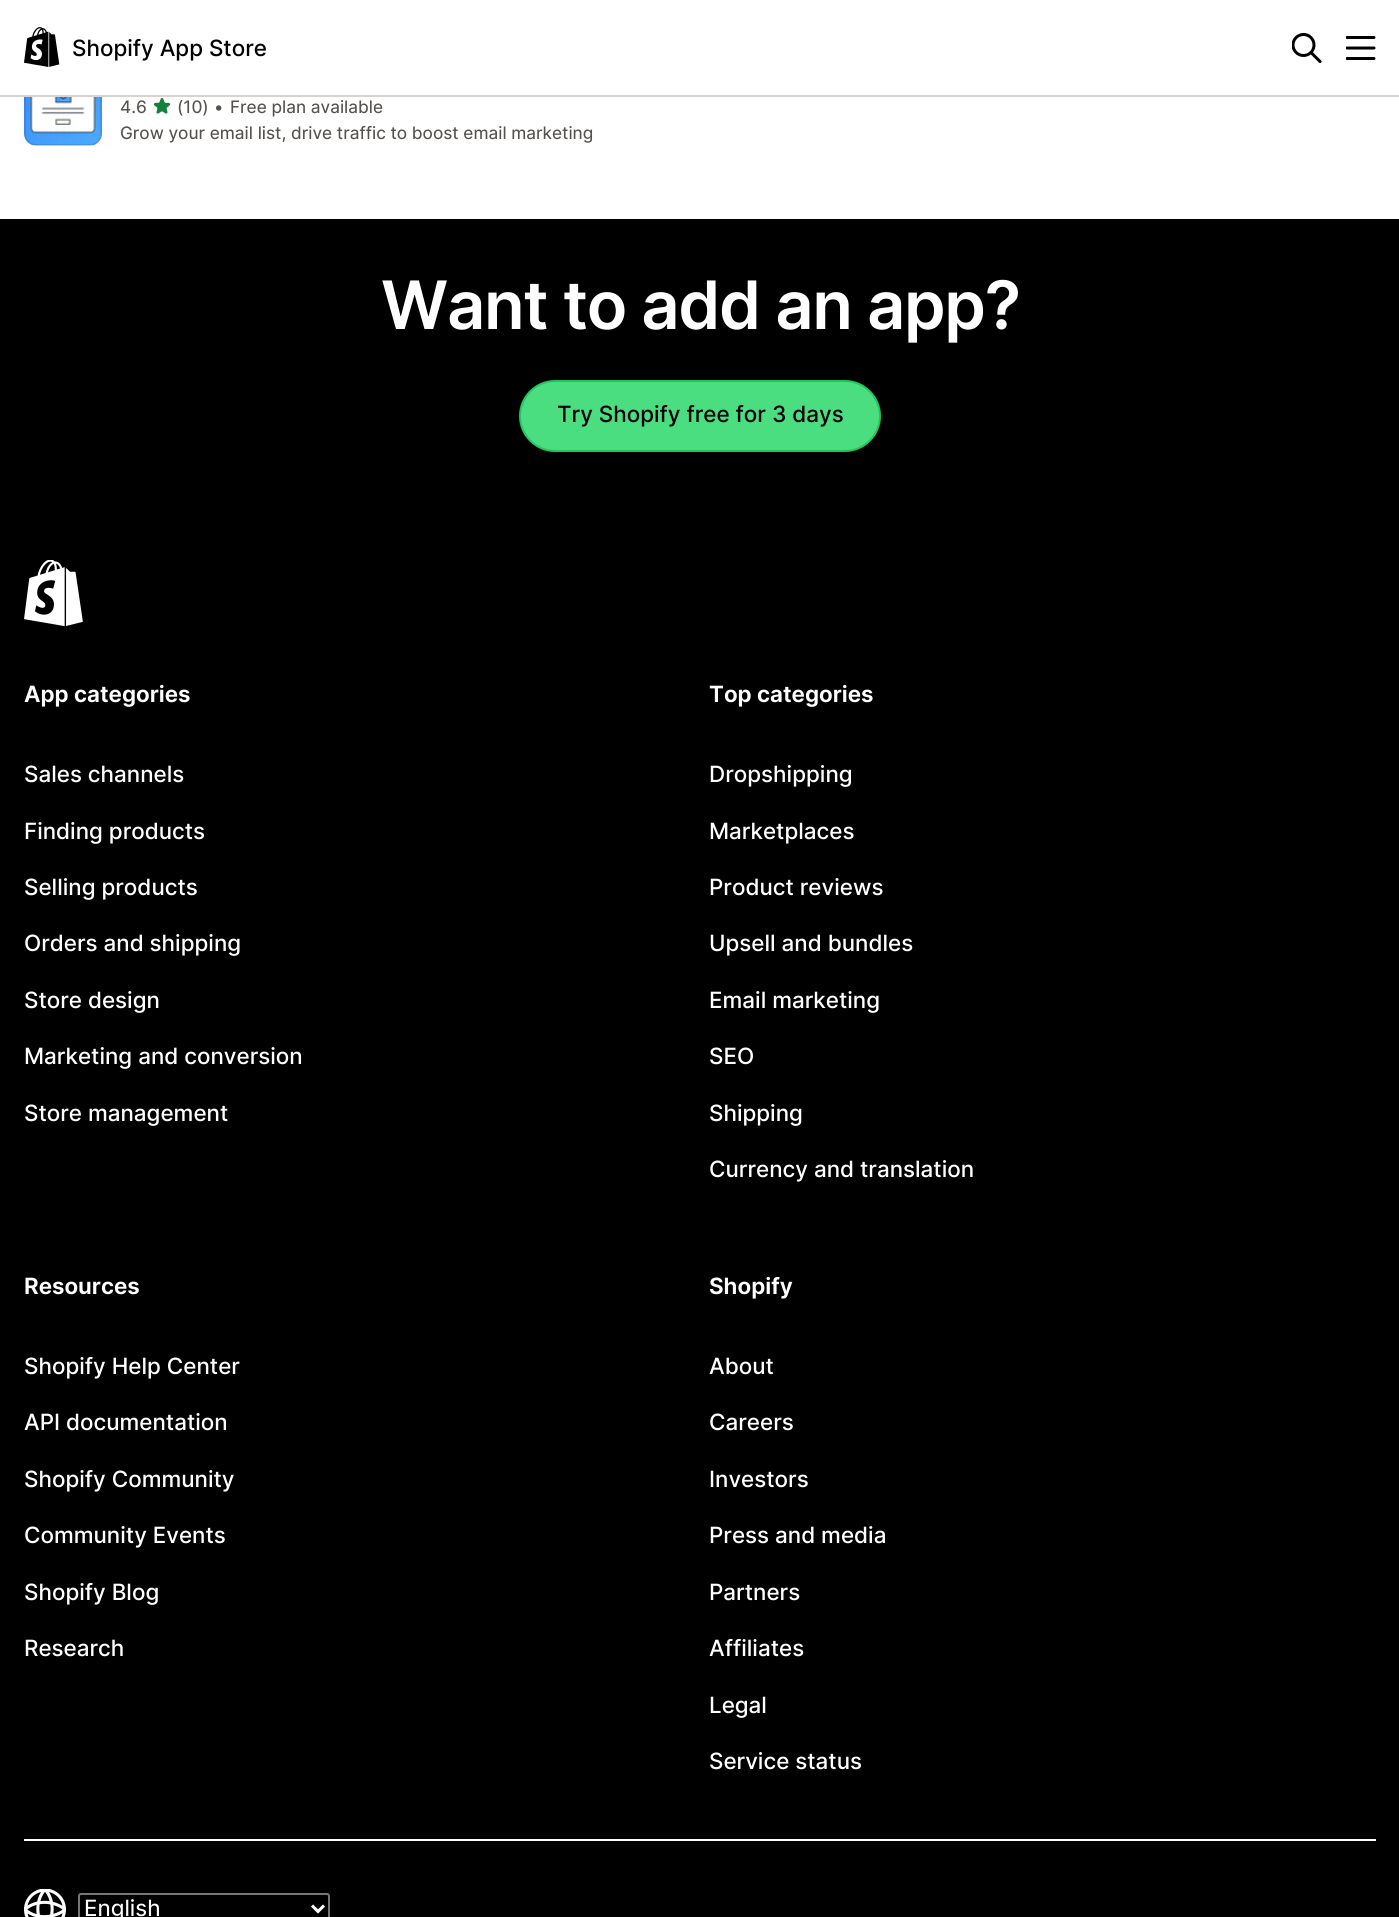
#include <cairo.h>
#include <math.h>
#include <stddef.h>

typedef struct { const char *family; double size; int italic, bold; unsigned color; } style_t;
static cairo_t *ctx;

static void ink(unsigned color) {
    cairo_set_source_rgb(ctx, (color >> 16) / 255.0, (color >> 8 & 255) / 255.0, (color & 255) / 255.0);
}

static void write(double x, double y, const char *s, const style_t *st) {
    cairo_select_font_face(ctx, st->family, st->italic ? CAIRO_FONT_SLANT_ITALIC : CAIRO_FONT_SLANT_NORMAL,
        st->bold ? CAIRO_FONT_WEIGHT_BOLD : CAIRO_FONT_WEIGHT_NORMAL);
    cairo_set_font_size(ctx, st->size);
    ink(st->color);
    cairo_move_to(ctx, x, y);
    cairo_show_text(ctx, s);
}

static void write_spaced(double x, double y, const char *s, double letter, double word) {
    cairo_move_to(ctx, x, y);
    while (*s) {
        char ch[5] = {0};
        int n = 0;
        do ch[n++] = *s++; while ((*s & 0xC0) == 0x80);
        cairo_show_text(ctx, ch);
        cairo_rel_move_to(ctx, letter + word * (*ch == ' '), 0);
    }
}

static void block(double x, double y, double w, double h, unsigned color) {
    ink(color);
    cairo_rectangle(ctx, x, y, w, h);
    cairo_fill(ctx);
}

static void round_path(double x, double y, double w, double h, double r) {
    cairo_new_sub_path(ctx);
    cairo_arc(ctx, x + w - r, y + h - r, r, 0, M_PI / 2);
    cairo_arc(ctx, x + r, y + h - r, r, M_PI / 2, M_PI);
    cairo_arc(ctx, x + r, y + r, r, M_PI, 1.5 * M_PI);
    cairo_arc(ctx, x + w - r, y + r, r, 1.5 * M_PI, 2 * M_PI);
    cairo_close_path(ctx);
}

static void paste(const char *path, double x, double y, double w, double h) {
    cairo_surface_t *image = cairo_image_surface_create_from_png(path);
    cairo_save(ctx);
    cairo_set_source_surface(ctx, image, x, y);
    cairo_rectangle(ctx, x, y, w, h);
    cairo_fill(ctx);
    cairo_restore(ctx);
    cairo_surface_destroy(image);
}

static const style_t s1 = {"Inter Medium", 22.4, 0, 0, 0x000000};
static const style_t s2 = {"Inter", 17.2, 0, 0, 0x56524e};
static const style_t s3 = {"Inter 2 SemiBold", 22.4, 0, 0, 0xffffff};
static const style_t s4 = {"Inter Medium", 22.4, 0, 0, 0xffffff};
static const style_t s5 = {"Inter", 22.4, 0, 0, 0xffffff};

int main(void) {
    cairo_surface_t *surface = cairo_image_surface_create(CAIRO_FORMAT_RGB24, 1399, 1917);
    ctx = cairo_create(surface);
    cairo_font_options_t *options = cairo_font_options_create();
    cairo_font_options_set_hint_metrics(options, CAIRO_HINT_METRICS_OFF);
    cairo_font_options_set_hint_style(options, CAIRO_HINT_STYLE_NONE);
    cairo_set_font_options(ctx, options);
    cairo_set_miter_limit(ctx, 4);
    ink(0xffffff);
    cairo_paint(ctx);
    paste("pic4.png", 24, 97, 78, 49);
    round_path(25, 69, 76, 76, 11);
    cairo_set_source_rgba(ctx, 0, 0, 0, 0.1);
    cairo_stroke(ctx);
    block(24, 68, 78, 27, 0xffffff);
    block(0, 95, 1399, 2, 0xd6d3d1);
    paste("pic1.png", 24, 27, 36, 40);
    write(72, 56, "Shopify App Store", &s1);
    paste("pic2.png", 1292, 33, 30, 30);
    paste("pic3.png", 1346, 36, 30, 24);
    write(120, 113, "4.6", &s2);
    paste("pic5.png", 153, 98, 18, 16);
    write(177, 113, "(10)", &s2);
    write(214, 113, "•", &s2);
    write(230, 113, "Free plan available", &s2);
    write(120, 139, "Grow your email list, drive traffic to boost email marketing", &s2);
    block(0, 219, 1399, 1698, 0x000000);
    cairo_select_font_face(ctx, "Inter SemiBold", CAIRO_FONT_SLANT_NORMAL, CAIRO_FONT_WEIGHT_NORMAL);
    cairo_set_font_size(ctx, 66.75);
    ink(0xffffff);
    write_spaced(381, 329, "Want to add an app?", -1.3, 0);
    ink(0x4ade80);
    round_path(520, 381, 360, 70, 35);
    cairo_fill_preserve(ctx);
    ink(0x21c45d);
    cairo_stroke(ctx);
    write(557, 422, "Try Shopify free for 3 days", &s1);
    paste("pic6.png", 24, 560, 59, 67);
    write(24, 702, "App categories", &s3);
    write(24, 782, "Sales channels", &s4);
    write(24, 839, "Finding products", &s4);
    write(24, 895, "Selling products", &s4);
    write(24, 951, "Orders and shipping", &s4);
    write(24, 1008, "Store design", &s4);
    write(24, 1064, "Marketing and conversion", &s4);
    write(24, 1121, "Store management", &s4);
    write(709, 702, "Top categories", &s3);
    write(709, 782, "Dropshipping", &s4);
    write(709, 839, "Marketplaces", &s4);
    write(709, 895, "Product reviews", &s4);
    write(709, 951, "Upsell and bundles", &s4);
    write(709, 1008, "Email marketing", &s4);
    write(709, 1064, "SEO", &s4);
    write(709, 1121, "Shipping", &s4);
    write(709, 1177, "Currency and translation", &s4);
    write(24, 1294, "Resources", &s3);
    write(24, 1374, "Shopify Help Center", &s4);
    write(24, 1430, "API documentation", &s4);
    write(24, 1487, "Shopify Community", &s4);
    write(24, 1543, "Community Events", &s4);
    write(24, 1600, "Shopify Blog", &s4);
    write(24, 1656, "Research", &s4);
    write(709, 1294, "Shopify", &s3);
    write(709, 1374, "About", &s4);
    write(709, 1430, "Careers", &s4);
    write(709, 1487, "Investors", &s4);
    write(709, 1543, "Press and media", &s4);
    write(709, 1600, "Partners", &s4);
    write(709, 1656, "Affiliates", &s4);
    write(709, 1713, "Legal", &s4);
    write(709, 1769, "Service status", &s4);
    block(24, 1839, 1352, 2, 0xffffff);
    paste("pic7.png", 24, 1889, 42, 28);
    round_path(79, 1894, 250, 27, 2);
    ink(0x767676);
    cairo_stroke(ctx);
    cairo_new_path(ctx);
    cairo_move_to(ctx, 312, 1905.5);
    cairo_line_to(ctx, 318, 1911.5);
    cairo_line_to(ctx, 324, 1905.5);
    ink(0xffffff);
    cairo_set_line_width(ctx, 3);
    cairo_stroke(ctx);
    write(84, 1916, "English", &s5);
    cairo_surface_write_to_png(surface, "screenshot.png");
    cairo_font_options_destroy(options);
    cairo_destroy(ctx);
    cairo_surface_destroy(surface);
    return 0;
}
